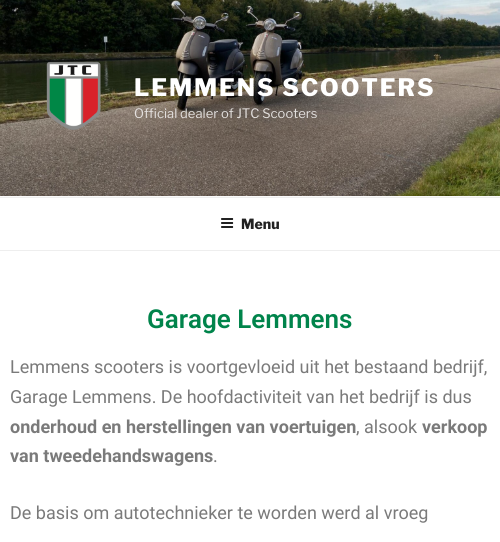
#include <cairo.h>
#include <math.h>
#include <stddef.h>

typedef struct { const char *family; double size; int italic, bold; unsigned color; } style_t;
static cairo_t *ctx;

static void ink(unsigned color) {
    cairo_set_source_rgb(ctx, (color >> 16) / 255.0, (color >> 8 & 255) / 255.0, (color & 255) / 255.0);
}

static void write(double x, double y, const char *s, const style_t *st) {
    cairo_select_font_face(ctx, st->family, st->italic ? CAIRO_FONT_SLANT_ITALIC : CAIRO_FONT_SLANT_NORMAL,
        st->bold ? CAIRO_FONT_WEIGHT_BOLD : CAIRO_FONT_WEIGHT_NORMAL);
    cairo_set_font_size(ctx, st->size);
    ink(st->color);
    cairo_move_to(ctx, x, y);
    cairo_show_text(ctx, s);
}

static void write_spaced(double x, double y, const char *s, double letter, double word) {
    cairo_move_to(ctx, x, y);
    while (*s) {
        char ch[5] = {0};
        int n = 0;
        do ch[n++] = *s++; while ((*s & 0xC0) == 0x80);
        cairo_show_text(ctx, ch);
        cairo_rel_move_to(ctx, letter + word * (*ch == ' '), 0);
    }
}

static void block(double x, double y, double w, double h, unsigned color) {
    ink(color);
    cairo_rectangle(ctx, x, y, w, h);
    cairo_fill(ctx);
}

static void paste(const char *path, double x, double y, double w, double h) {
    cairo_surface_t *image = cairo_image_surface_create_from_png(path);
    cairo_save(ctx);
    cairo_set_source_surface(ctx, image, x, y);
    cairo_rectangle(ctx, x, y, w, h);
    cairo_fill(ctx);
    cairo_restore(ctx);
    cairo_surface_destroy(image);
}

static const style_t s1 = {"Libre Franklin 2 Thin", 13, 0, 0, 0xe3e0de};
static const style_t s2 = {"Libre Franklin Thin", 14, 0, 0, 0x222222};
static const style_t s3 = {"Roboto SemiBold", 26, 0, 0, 0x00844b};
static const style_t s4 = {"Roboto", 18, 0, 0, 0x7a7a7a};
static const style_t s5 = {"Roboto", 18, 0, 1, 0x7a7a7a};

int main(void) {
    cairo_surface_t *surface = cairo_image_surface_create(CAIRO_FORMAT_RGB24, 500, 542);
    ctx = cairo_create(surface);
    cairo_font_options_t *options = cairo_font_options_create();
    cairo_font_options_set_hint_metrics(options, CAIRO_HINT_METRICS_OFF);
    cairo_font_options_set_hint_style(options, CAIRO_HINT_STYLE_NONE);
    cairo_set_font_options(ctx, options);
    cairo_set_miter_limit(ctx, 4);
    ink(0xffffff);
    cairo_paint(ctx);
    block(0, 196, 500, 1, 0xfafafa);
    paste("pic1.png", 0, 0, 500, 196);
    paste("pic2.png", 46, 61, 55, 69);
    cairo_select_font_face(ctx, "Libre Franklin Thin", CAIRO_FONT_SLANT_NORMAL, CAIRO_FONT_WEIGHT_NORMAL);
    cairo_set_font_size(ctx, 24);
    ink(0xffffff);
    write_spaced(134, 96, "LEMMENS SCOOTERS", 1.9, 0);
    write(134, 118, "Official dealer of JTC Scooters", &s1);
    block(0, 197, 500, 1, 0xeeeeee);
    block(0, 250, 500, 1, 0xeeeeee);
    paste("pic3.png", 221, 218, 13, 10);
    write(241, 229, "Menu", &s2);
    write(147, 328, "Garage Lemmens", &s3);
    write(10, 373, "Lemmens scooters is voortgevloeid uit het bestaand bedrijf,", &s4);
    write(10, 403, "Garage Lemmens. De hoofdactiviteit van het bedrijf is dus", &s4);
    write(10, 433, "onderhoud en herstellingen van voertuigen", &s5);
    write(356, 433, ", alsook", &s4);
    write(422, 433, "verkoop", &s5);
    write(10, 462, "van tweedehandswagens", &s5);
    write(213, 462, ".", &s4);
    write(10, 519, "De basis om autotechnieker te worden werd al vroeg", &s4);
    cairo_surface_write_to_png(surface, "screenshot.png");
    cairo_font_options_destroy(options);
    cairo_destroy(ctx);
    cairo_surface_destroy(surface);
    return 0;
}
